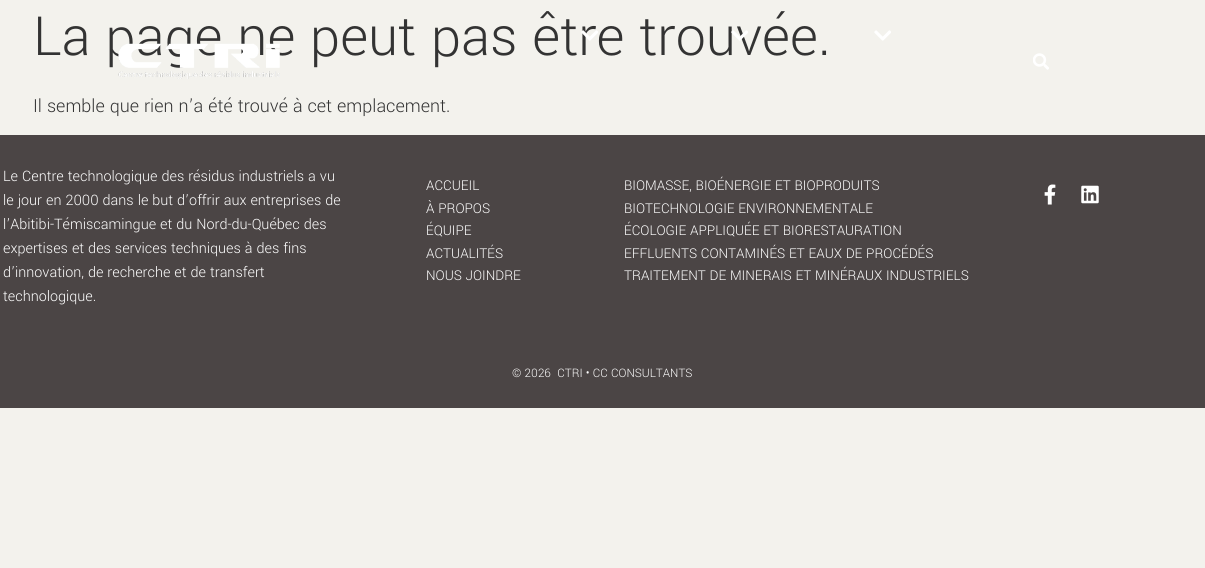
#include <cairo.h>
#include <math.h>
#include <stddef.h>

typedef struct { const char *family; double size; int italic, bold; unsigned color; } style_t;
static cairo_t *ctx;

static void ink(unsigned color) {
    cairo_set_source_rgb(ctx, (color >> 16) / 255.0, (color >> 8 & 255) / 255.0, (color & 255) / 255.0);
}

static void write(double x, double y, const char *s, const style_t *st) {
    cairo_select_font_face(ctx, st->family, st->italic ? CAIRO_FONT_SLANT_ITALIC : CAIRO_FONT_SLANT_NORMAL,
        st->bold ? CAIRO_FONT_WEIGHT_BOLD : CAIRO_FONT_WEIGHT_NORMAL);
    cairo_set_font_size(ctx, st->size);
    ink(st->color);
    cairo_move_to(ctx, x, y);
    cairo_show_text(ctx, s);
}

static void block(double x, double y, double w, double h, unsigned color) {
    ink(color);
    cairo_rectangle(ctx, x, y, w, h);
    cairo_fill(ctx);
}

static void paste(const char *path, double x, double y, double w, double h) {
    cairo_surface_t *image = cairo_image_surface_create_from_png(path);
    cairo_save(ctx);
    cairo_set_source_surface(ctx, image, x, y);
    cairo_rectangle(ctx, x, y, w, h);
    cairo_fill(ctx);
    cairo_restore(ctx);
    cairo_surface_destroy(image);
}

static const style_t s1 = {"Yantramanav Light", 60, 0, 0, 0x333333};
static const style_t s2 = {"Yantramanav Light", 20, 0, 0, 0x333333};
static const style_t s3 = {"Yantramanav Light", 16, 0, 0, 0xffffff};
static const style_t s4 = {"Yantramanav Light", 15, 0, 0, 0xffffff};
static const style_t s5 = {"Yantramanav Light", 13, 0, 0, 0xffffff};

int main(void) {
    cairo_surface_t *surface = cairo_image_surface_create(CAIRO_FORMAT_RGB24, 1205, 568);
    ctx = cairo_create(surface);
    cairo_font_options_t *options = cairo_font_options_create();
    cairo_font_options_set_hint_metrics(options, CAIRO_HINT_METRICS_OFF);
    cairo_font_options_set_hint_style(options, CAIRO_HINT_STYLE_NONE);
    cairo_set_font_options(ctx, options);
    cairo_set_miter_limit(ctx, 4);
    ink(0xf3f2ed);
    cairo_paint(ctx);
    write(33, 55, "La page ne peut pas être trouvée.", &s1);
    write(33, 112, "Il semble que rien n’a été trouvé à cet emplacement.", &s2);
    paste("pic1.png", 118, 43, 162, 36);
    paste("pic2.png", 581, 30, 17, 11);
    paste("pic3.png", 731, 30, 17, 11);
    paste("pic4.png", 874, 30, 17, 11);
    paste("pic5.png", 1033, 53, 16, 17);
    block(0, 135, 1205, 273, 0x4b4545);
    write(3, 181, "Le Centre technologique des résidus industriels a vu", &s3);
    write(3, 205, "le jour en 2000 dans le but d’offrir aux entreprises de", &s3);
    write(3, 229, "l’Abitibi-Témiscamingue et du Nord-du-Québec des", &s3);
    write(3, 253, "expertises et des services techniques à des fins", &s3);
    write(3, 277, "d’innovation, de recherche et de transfert", &s3);
    write(3, 301, "technologique.", &s3);
    write(426, 190, "ACCUEIL", &s4);
    write(426, 213, "À PROPOS", &s4);
    write(426, 235, "ÉQUIPE", &s4);
    write(426, 258, "ACTUALITÉS", &s4);
    write(426, 280, "NOUS JOINDRE", &s4);
    write(624, 190, "BIOMASSE, BIOÉNERGIE ET BIOPRODUITS", &s4);
    write(624, 213, "BIOTECHNOLOGIE ENVIRONNEMENTALE", &s4);
    write(624, 235, "ÉCOLOGIE APPLIQUÉE ET BIORESTAURATION", &s4);
    write(624, 258, "EFFLUENTS CONTAMINÉS ET EAUX DE PROCÉDÉS", &s4);
    write(624, 280, "TRAITEMENT DE MINERAIS ET MINÉRAUX INDUSTRIELS", &s4);
    paste("pic6.png", 1044, 184, 12, 21);
    paste("pic7.png", 1081, 185, 18, 19);
    write(512, 377, "© 2026  CTRI • CC CONSULTANTS", &s5);
    cairo_surface_write_to_png(surface, "screenshot.png");
    cairo_font_options_destroy(options);
    cairo_destroy(ctx);
    cairo_surface_destroy(surface);
    return 0;
}
